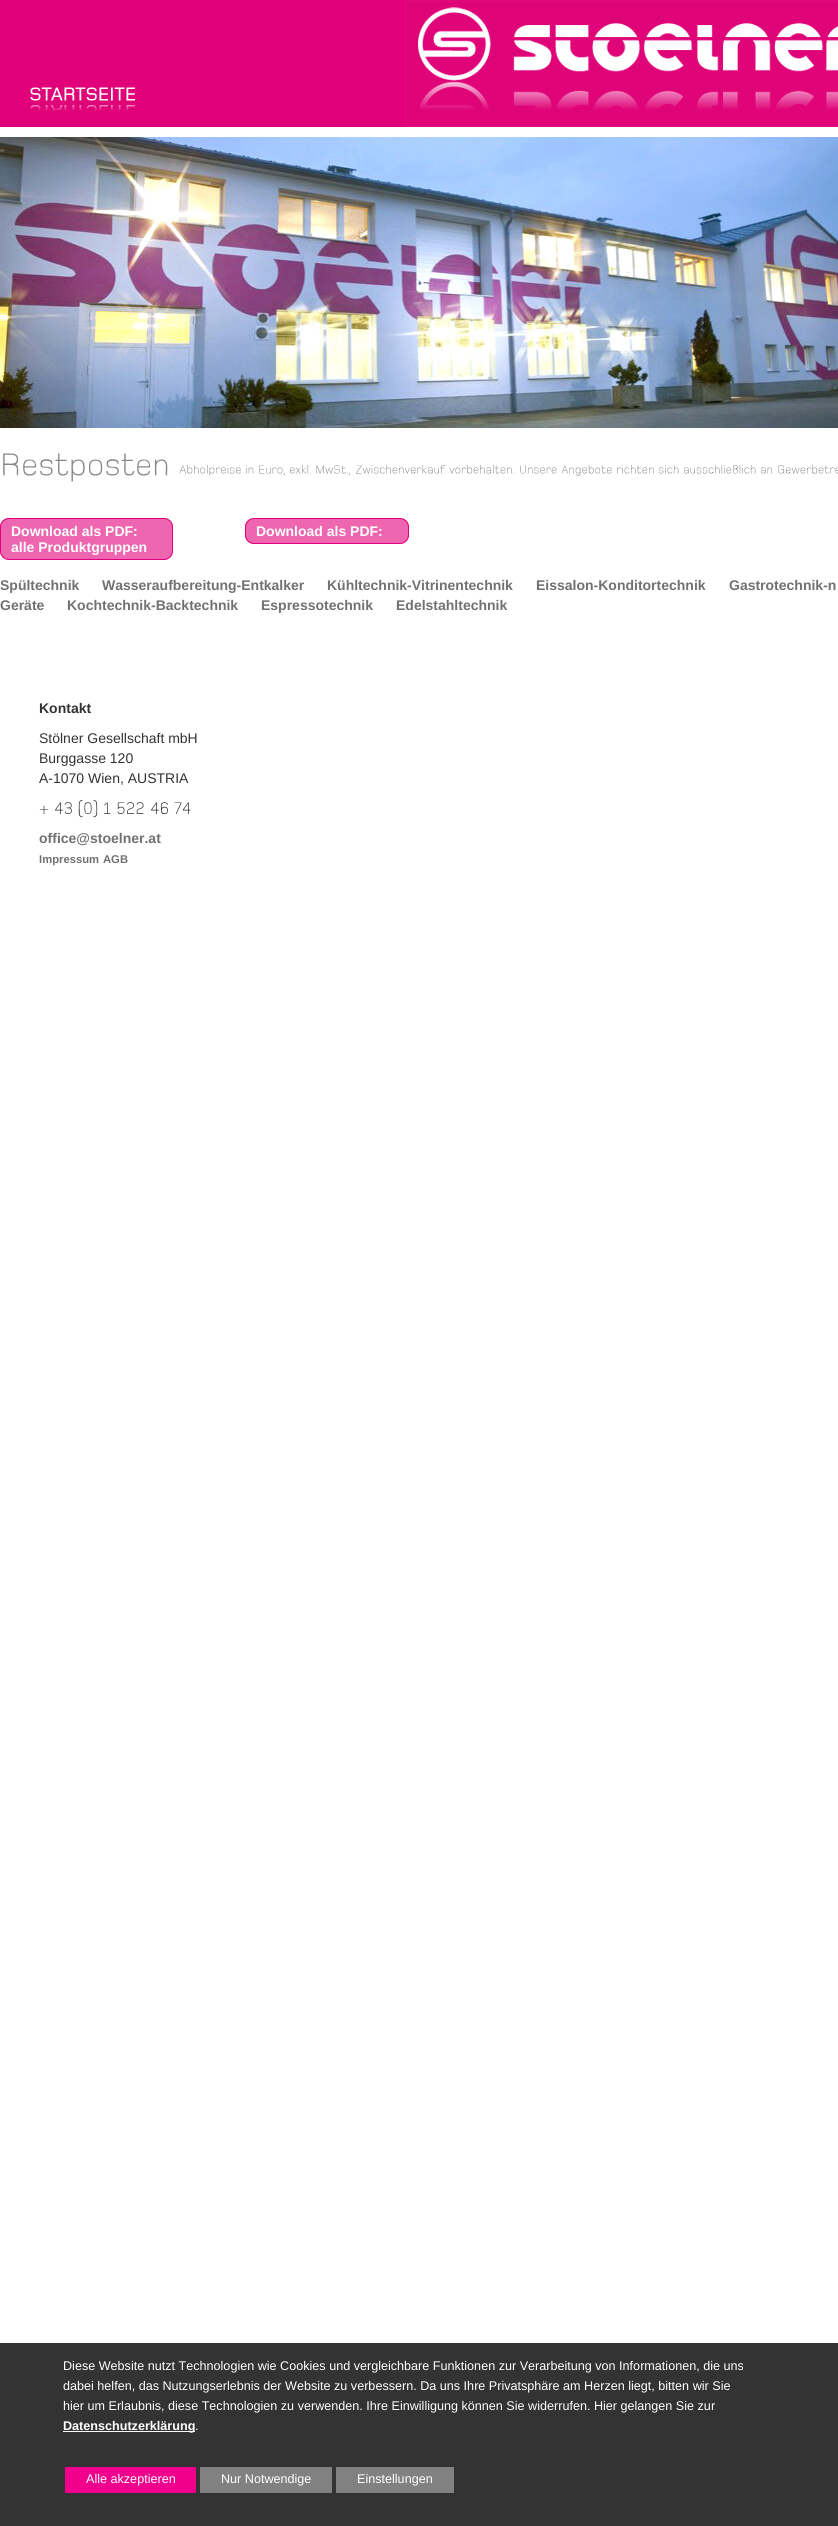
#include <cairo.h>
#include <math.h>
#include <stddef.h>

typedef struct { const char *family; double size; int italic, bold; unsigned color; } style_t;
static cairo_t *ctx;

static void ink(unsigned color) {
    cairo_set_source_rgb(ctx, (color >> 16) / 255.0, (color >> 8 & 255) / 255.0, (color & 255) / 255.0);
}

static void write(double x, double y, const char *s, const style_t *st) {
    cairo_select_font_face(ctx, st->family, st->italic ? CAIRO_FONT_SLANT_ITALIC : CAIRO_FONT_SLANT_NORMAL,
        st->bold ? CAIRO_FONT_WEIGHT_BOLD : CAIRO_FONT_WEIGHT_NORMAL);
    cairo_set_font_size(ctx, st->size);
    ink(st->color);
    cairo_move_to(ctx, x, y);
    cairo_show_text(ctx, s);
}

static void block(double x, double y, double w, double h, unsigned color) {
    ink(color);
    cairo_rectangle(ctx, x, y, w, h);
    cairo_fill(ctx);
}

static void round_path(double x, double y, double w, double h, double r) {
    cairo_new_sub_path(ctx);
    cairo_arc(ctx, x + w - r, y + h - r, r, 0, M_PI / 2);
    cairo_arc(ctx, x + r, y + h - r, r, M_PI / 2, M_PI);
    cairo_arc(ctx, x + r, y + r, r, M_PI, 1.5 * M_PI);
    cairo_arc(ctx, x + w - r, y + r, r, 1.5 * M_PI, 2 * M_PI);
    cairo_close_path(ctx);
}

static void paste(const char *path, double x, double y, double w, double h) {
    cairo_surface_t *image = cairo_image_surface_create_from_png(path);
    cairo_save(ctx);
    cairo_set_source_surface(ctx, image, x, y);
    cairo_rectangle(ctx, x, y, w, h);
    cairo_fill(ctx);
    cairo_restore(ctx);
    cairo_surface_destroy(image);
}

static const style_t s1 = {"Liberation Sans", 14, 0, 1, 0xffffff};
static const style_t s2 = {"Liberation Sans", 14, 0, 1, 0x707172};
static const style_t s3 = {"Liberation Sans", 14, 0, 1, 0x333333};
static const style_t s4 = {"Liberation Sans", 14, 0, 0, 0x333333};
static const style_t s5 = {"Liberation Sans", 11.25, 0, 1, 0x707172};
static const style_t s6 = {"Liberation Sans", 12.6, 0, 0, 0xffffff};
static const style_t s7 = {"Liberation Sans", 12.6, 0, 1, 0xffffff};

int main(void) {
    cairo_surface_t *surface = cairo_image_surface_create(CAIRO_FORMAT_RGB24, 838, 2526);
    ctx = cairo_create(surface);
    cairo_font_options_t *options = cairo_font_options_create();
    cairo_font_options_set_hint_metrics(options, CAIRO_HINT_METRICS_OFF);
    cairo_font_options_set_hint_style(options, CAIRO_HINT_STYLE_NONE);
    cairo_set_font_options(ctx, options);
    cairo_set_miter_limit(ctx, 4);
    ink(0xffffff);
    cairo_paint(ctx);
    block(0, 0, 405, 127, 0xe2007a);
    paste("pic1.png", 30, 87, 105, 24);
    paste("pic2.png", 405, 0, 433, 127);
    paste("pic3.png", 0, 137, 838, 291);
    paste("pic4.png", 3, 453, 165, 29);
    paste("pic5.png", 179, 465, 62, 11);
    paste("pic6.png", 246, 465, 8, 9);
    paste("pic7.png", 259, 465, 26, 11);
    paste("pic8.png", 290, 465, 21, 9);
    paste("pic9.png", 316, 465, 35, 11);
    paste("pic10.png", 356, 465, 89, 9);
    paste("pic11.png", 449, 465, 66, 9);
    paste("pic12.png", 520, 465, 37, 9);
    paste("pic13.png", 561, 465, 51, 11);
    paste("pic14.png", 617, 465, 37, 9);
    paste("pic15.png", 659, 465, 20, 9);
    paste("pic16.png", 683, 465, 73, 9);
    paste("pic17.png", 760, 467, 13, 7);
    paste("pic18.png", 778, 465, 60, 9);
    paste("pic19.png", 0, 518, 173, 42);
    round_path(0.5, 518.5, 172, 41, 8.5);
    cairo_set_line_width(ctx, 1);
    cairo_stroke(ctx);
    write(11, 536, "Download als PDF:", &s1);
    write(11, 552, "alle Produktgruppen", &s1);
    paste("pic20.png", 245, 518, 164, 26);
    round_path(245.5, 518.5, 163, 25, 8.5);
    ink(0xe2007a);
    cairo_stroke(ctx);
    write(256, 536, "Download als PDF:", &s1);
    write(0, 590, "Spültechnik", &s2);
    write(102, 590, "Wasseraufbereitung-Entkalker", &s2);
    write(327, 590, "Kühltechnik-Vitrinentechnik", &s2);
    write(536, 590, "Eissalon-Konditortechnik", &s2);
    write(729, 590, "Gastrotechnik-n", &s2);
    write(0, 610, "Geräte", &s2);
    write(67, 610, "Kochtechnik-Backtechnik", &s2);
    write(261, 610, "Espressotechnik", &s2);
    write(396, 610, "Edelstahltechnik", &s2);
    write(39, 713, "Kontakt", &s3);
    write(39, 743, "Stölner Gesellschaft mbH", &s4);
    write(39, 763, "Burggasse 120", &s4);
    write(39, 783, "A-1070 Wien, AUSTRIA", &s4);
    paste("pic21.png", 39, 805, 10, 9);
    paste("pic22.png", 55, 802, 17, 12);
    paste("pic23.png", 78, 800, 20, 18);
    paste("pic24.png", 104, 802, 7, 12);
    paste("pic25.png", 117, 802, 27, 12);
    paste("pic26.png", 151, 802, 17, 12);
    paste("pic27.png", 174, 802, 17, 12);
    write(39, 843, "office@stoelner.at", &s2);
    write(39, 863, "Impressum", &s5);
    write(103, 863, "AGB", &s5);
    block(0, 2343, 838, 183, 0x333333);
    write(63, 2370, "Diese Website nutzt Technologien wie Cookies und vergleichbare Funktionen zur Verarbeitung von Informationen, die uns", &s6);
    write(63, 2390, "dabei helfen, das Nutzungserlebnis der Website zu verbessern. Da uns Ihre Privatsphäre am Herzen liegt, bitten wir Sie", &s6);
    write(63, 2410, "hier um Erlaubnis, diese Technologien zu verwenden. Ihre Einwilligung können Sie widerrufen. Hier gelangen Sie zur", &s6);
    block(63, 2431, 132, 1, 0xffffff);
    write(63, 2430, "Datenschutzerklärung", &s7);
    write(195, 2430, ".", &s6);
    block(65, 2467, 131, 26, 0xf0008c);
    write(86, 2483, "Alle akzeptieren", &s6);
    block(200, 2467, 132, 26, 0x818181);
    write(221, 2483, "Nur Notwendige", &s6);
    block(336, 2467, 118, 26, 0x818181);
    write(357, 2483, "Einstellungen", &s6);
    cairo_surface_write_to_png(surface, "screenshot.png");
    cairo_font_options_destroy(options);
    cairo_destroy(ctx);
    cairo_surface_destroy(surface);
    return 0;
}
